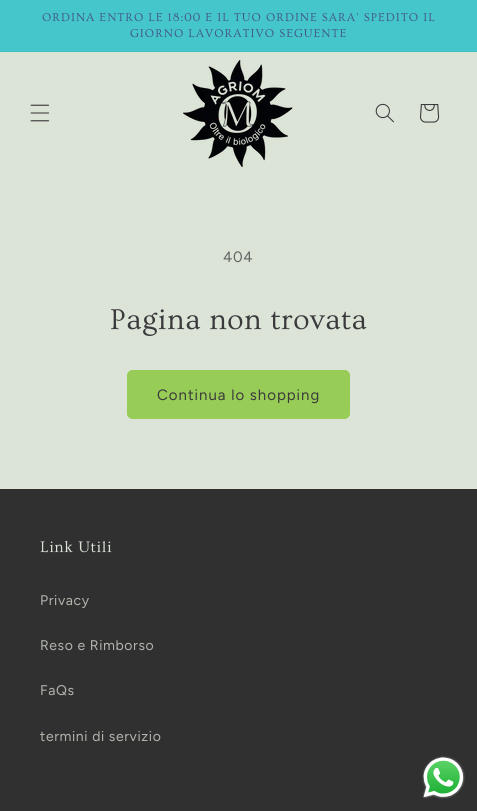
#include <cairo.h>
#include <math.h>
#include <stddef.h>

static cairo_t *ctx;

static void ink(unsigned color) {
    cairo_set_source_rgb(ctx, (color >> 16) / 255.0, (color >> 8 & 255) / 255.0, (color & 255) / 255.0);
}

static void write_spaced(double x, double y, const char *s, double letter, double word) {
    cairo_move_to(ctx, x, y);
    while (*s) {
        char ch[5] = {0};
        int n = 0;
        do ch[n++] = *s++; while ((*s & 0xC0) == 0x80);
        cairo_show_text(ctx, ch);
        cairo_rel_move_to(ctx, letter + word * (*ch == ' '), 0);
    }
}

static void block(double x, double y, double w, double h, unsigned color) {
    ink(color);
    cairo_rectangle(ctx, x, y, w, h);
    cairo_fill(ctx);
}

static void round_path(double x, double y, double w, double h, double r) {
    cairo_new_sub_path(ctx);
    cairo_arc(ctx, x + w - r, y + h - r, r, 0, M_PI / 2);
    cairo_arc(ctx, x + r, y + h - r, r, M_PI / 2, M_PI);
    cairo_arc(ctx, x + r, y + r, r, M_PI, 1.5 * M_PI);
    cairo_arc(ctx, x + w - r, y + r, r, 1.5 * M_PI, 2 * M_PI);
    cairo_close_path(ctx);
}

static void paste(const char *path, double x, double y, double w, double h) {
    cairo_surface_t *image = cairo_image_surface_create_from_png(path);
    cairo_save(ctx);
    cairo_set_source_surface(ctx, image, x, y);
    cairo_rectangle(ctx, x, y, w, h);
    cairo_fill(ctx);
    cairo_restore(ctx);
    cairo_surface_destroy(image);
}

int main(void) {
    cairo_surface_t *surface = cairo_image_surface_create(CAIRO_FORMAT_RGB24, 477, 811);
    ctx = cairo_create(surface);
    cairo_font_options_t *options = cairo_font_options_create();
    cairo_font_options_set_hint_metrics(options, CAIRO_HINT_METRICS_OFF);
    cairo_font_options_set_hint_style(options, CAIRO_HINT_STYLE_NONE);
    cairo_set_font_options(ctx, options);
    cairo_set_miter_limit(ctx, 4);
    ink(0xdce3d7);
    cairo_paint(ctx);
    block(0, 0, 477, 51, 0x45c6ca);
    block(0, 51, 477, 1, 0x45bdc5);
    cairo_select_font_face(ctx, "Ovo", CAIRO_FONT_SLANT_NORMAL, CAIRO_FONT_WEIGHT_NORMAL);
    cairo_set_font_size(ctx, 12);
    ink(0x425589);
    write_spaced(42, 21, "ORDINA ENTRO LE 18:00 E IL TUO ORDINE SARA' SPEDITO IL", 1, 0);
    write_spaced(130, 37, "GIORNO LAVORATIVO SEGUENTE", 1, 0);
    paste("pic1.png", 30, 104, 20, 18);
    paste("pic2.png", 183, 60, 110, 107);
    paste("pic3.png", 375, 103, 19, 20);
    paste("pic4.png", 420, 104, 20, 19);
    cairo_select_font_face(ctx, "Figtree", CAIRO_FONT_SLANT_NORMAL, CAIRO_FONT_WEIGHT_NORMAL);
    cairo_set_font_size(ctx, 15);
    ink(0x636463);
    write_spaced(223, 262, "404", 0.6, 0);
    cairo_select_font_face(ctx, "Ovo", CAIRO_FONT_SLANT_NORMAL, CAIRO_FONT_WEIGHT_NORMAL);
    cairo_set_font_size(ctx, 30);
    ink(0x3a3a3c);
    write_spaced(110, 329, "Pagina non trovata", 0.6, 0);
    ink(0x97cc56);
    round_path(127, 370, 223, 49, 6);
    cairo_fill(ctx);
    round_path(128, 371, 221, 47, 5);
    cairo_stroke(ctx);
    cairo_select_font_face(ctx, "Figtree", CAIRO_FONT_SLANT_NORMAL, CAIRO_FONT_WEIGHT_NORMAL);
    cairo_set_font_size(ctx, 15);
    ink(0x3a3a3c);
    write_spaced(157, 400, "Continua lo shopping", 1, 0);
    block(0, 489, 477, 322, 0x303030);
    cairo_select_font_face(ctx, "Ovo", CAIRO_FONT_SLANT_NORMAL, CAIRO_FONT_WEIGHT_NORMAL);
    cairo_set_font_size(ctx, 16);
    ink(0xdce3d7);
    write_spaced(40, 552, "Link Utili", 0.6, 0);
    cairo_select_font_face(ctx, "Figtree", CAIRO_FONT_SLANT_NORMAL, CAIRO_FONT_WEIGHT_NORMAL);
    cairo_set_font_size(ctx, 14);
    ink(0xb1b6ad);
    write_spaced(40, 605, "Privacy", 0.6, 0);
    write_spaced(40, 650, "Reso e Rimborso", 0.6, 0);
    write_spaced(40, 695, "FaQs", 0.6, 0);
    write_spaced(40, 741, "termini di servizio", 0.6, 0);
    paste("pic5.png", 422, 756, 43, 43);
    cairo_surface_write_to_png(surface, "screenshot.png");
    cairo_font_options_destroy(options);
    cairo_destroy(ctx);
    cairo_surface_destroy(surface);
    return 0;
}
